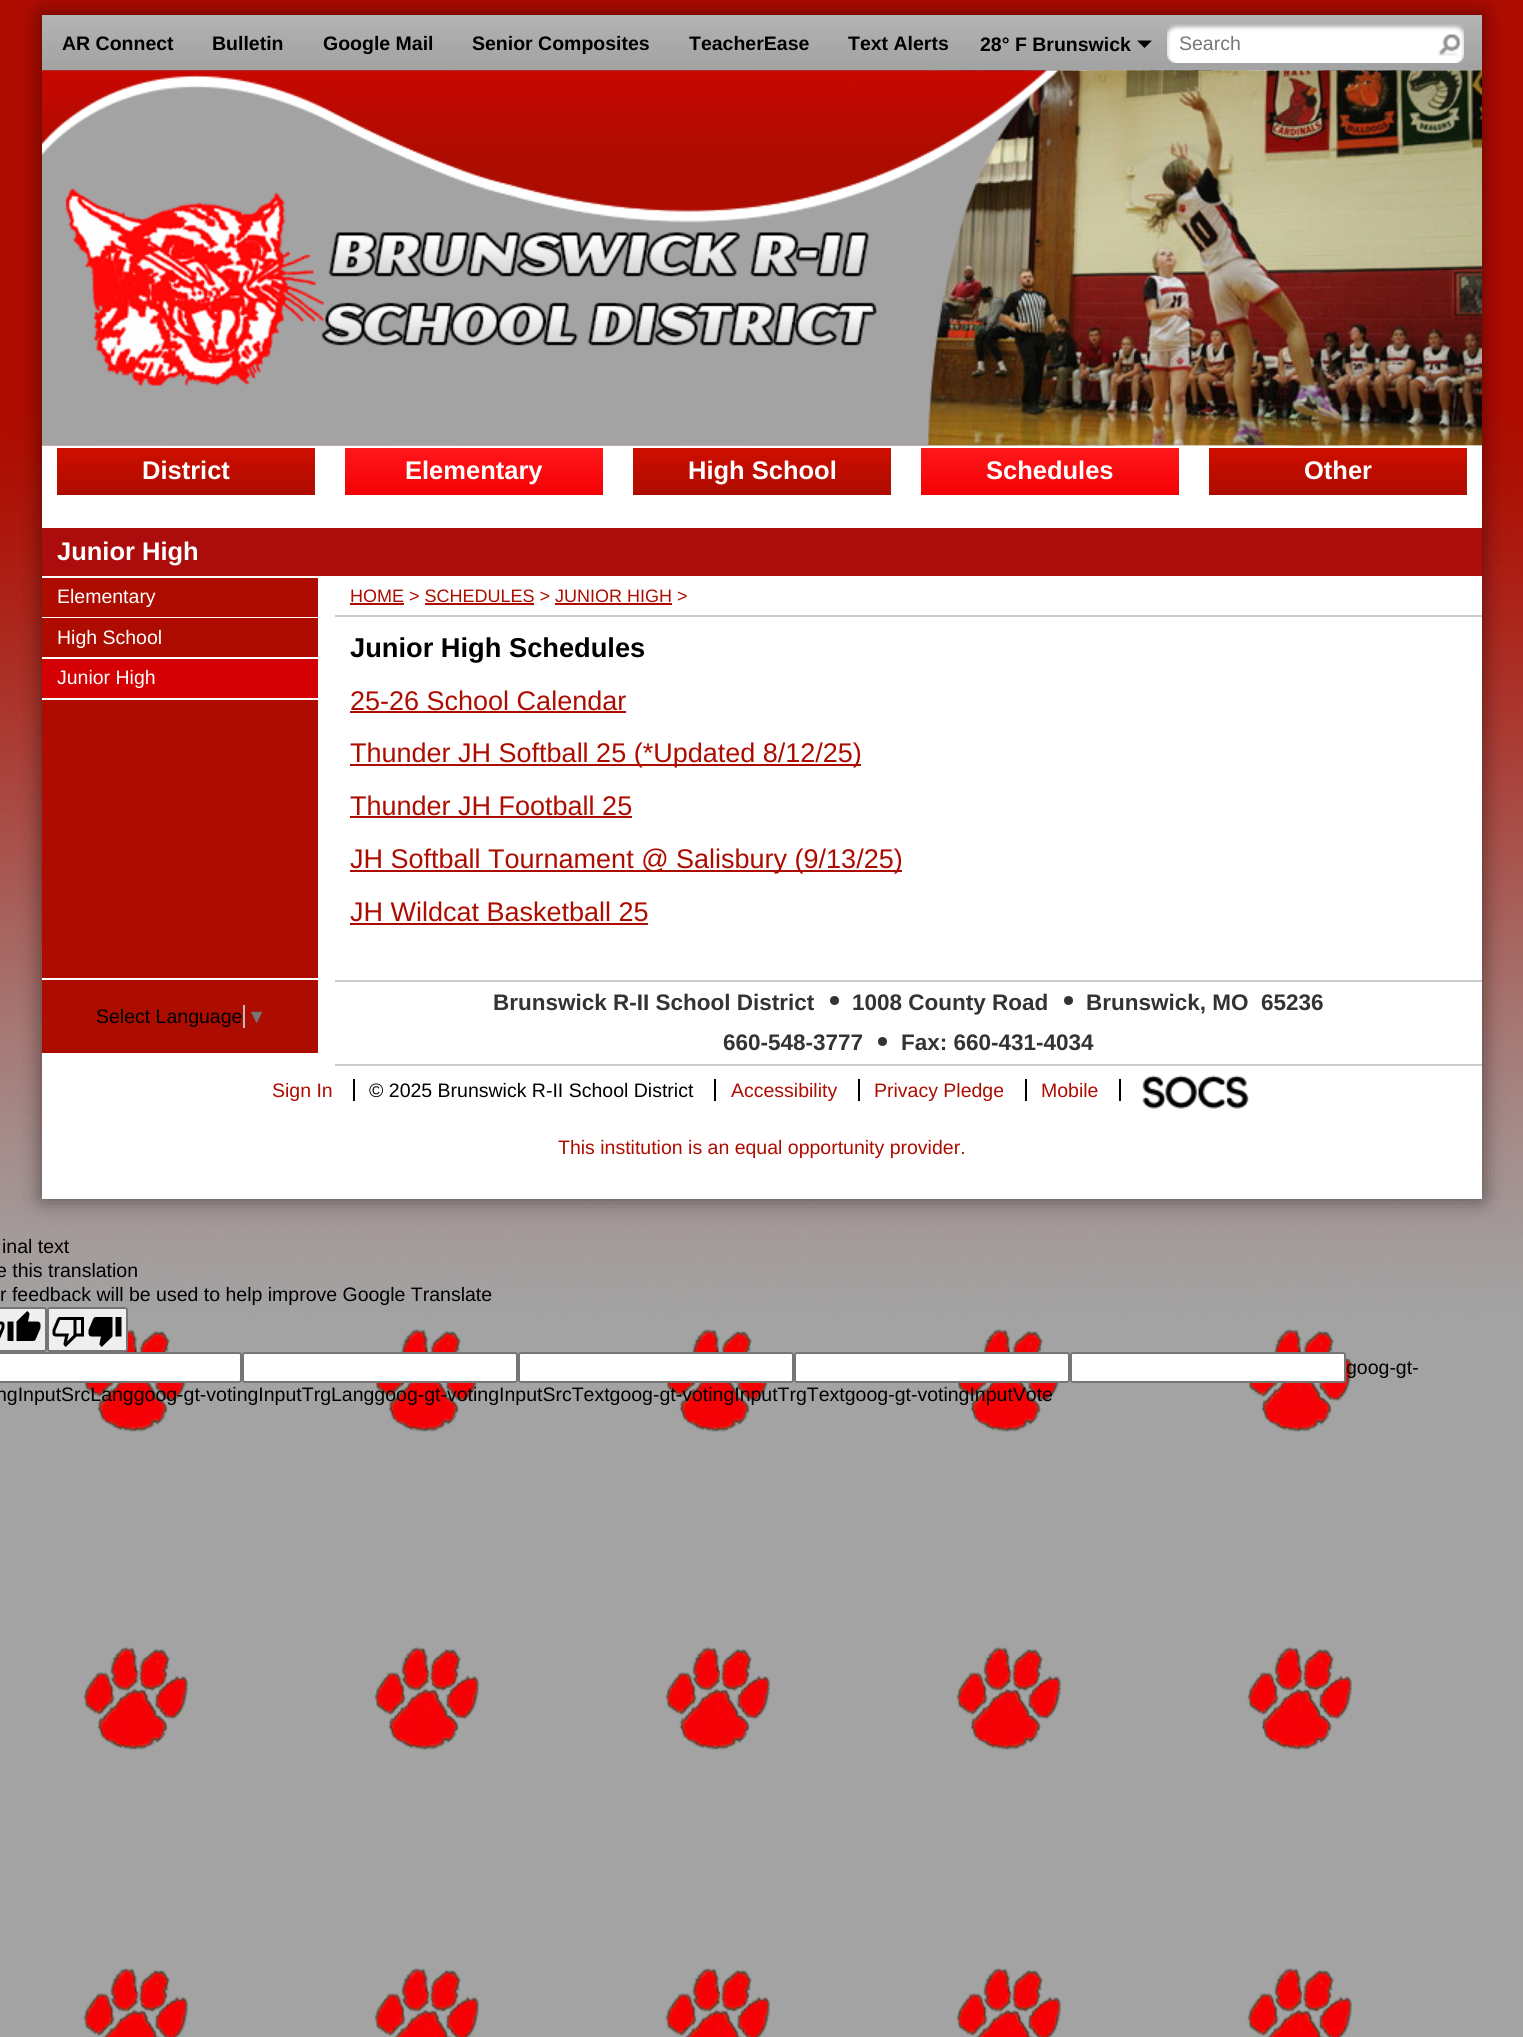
#include <cairo.h>
#include <math.h>
#include <stddef.h>

typedef struct { const char *family; double size; int italic, bold; unsigned color; } style_t;
static cairo_t *ctx;

static void ink(unsigned color) {
    cairo_set_source_rgb(ctx, (color >> 16) / 255.0, (color >> 8 & 255) / 255.0, (color & 255) / 255.0);
}

static void write(double x, double y, const char *s, const style_t *st) {
    cairo_select_font_face(ctx, st->family, st->italic ? CAIRO_FONT_SLANT_ITALIC : CAIRO_FONT_SLANT_NORMAL,
        st->bold ? CAIRO_FONT_WEIGHT_BOLD : CAIRO_FONT_WEIGHT_NORMAL);
    cairo_set_font_size(ctx, st->size);
    ink(st->color);
    cairo_move_to(ctx, x, y);
    cairo_show_text(ctx, s);
}

static void block(double x, double y, double w, double h, unsigned color) {
    ink(color);
    cairo_rectangle(ctx, x, y, w, h);
    cairo_fill(ctx);
}

static void round_path(double x, double y, double w, double h, double r) {
    cairo_new_sub_path(ctx);
    cairo_arc(ctx, x + w - r, y + h - r, r, 0, M_PI / 2);
    cairo_arc(ctx, x + r, y + h - r, r, M_PI / 2, M_PI);
    cairo_arc(ctx, x + r, y + r, r, M_PI, 1.5 * M_PI);
    cairo_arc(ctx, x + w - r, y + r, r, 1.5 * M_PI, 2 * M_PI);
    cairo_close_path(ctx);
}

static void blur_box(double x, double y, double w, double h, double r, double blur, double alpha) {
    cairo_push_group_with_content(ctx, CAIRO_CONTENT_ALPHA);
    cairo_set_operator(ctx, CAIRO_OPERATOR_SOURCE);
    for (int i = 15; i >= -15 && fmin(w, h) + blur * i / 3 > 0; i -= 2) {
        double e = blur * i / 6;
        cairo_set_source_rgba(ctx, 0, 0, 0, alpha * erfc((i - 1) / 8.5) / 2);
        round_path(x - e, y - e, w + 2 * e, h + 2 * e, fmax(0, fmin(r + e + blur * .6, fmin(w, h) / 2 + e)));
        cairo_fill(ctx);
    }
    cairo_pattern_t *soft = cairo_pop_group(ctx);
    cairo_mask(ctx, soft);
    cairo_pattern_destroy(soft);
}

static void paste(const char *path, double x, double y, double w, double h) {
    cairo_surface_t *image = cairo_image_surface_create_from_png(path);
    cairo_save(ctx);
    cairo_set_source_surface(ctx, image, x, y);
    cairo_rectangle(ctx, x, y, w, h);
    cairo_fill(ctx);
    cairo_restore(ctx);
    cairo_surface_destroy(image);
}

static const style_t s1 = {"Liberation Sans", 19.5, 0, 1, 0x000000};
static const style_t s2 = {"Liberation Sans", 19.5, 0, 0, 0x767676};
static const style_t s3 = {"Liberation Sans", 25.5, 0, 1, 0xffffff};
static const style_t s4 = {"Liberation Sans", 19.5, 0, 0, 0xffffff};
static const style_t s5 = {"Liberation Sans", 18, 0, 0, 0xad0c00};
static const style_t s6 = {"Liberation Sans", 27.25, 0, 1, 0x000000};
static const style_t s7 = {"Liberation Sans", 27, 0, 0, 0xad0c00};
static const style_t s8 = {"Liberation Sans", 19.5, 0, 0, 0x000000};
static const style_t s9 = {"Liberation Sans", 22.5, 0, 1, 0x333333};
static const style_t s10 = {"Liberation Sans", 19.5, 0, 0, 0xad0c00};

int main(void) {
    cairo_surface_t *surface = cairo_image_surface_create(CAIRO_FORMAT_RGB24, 1523, 2037);
    ctx = cairo_create(surface);
    cairo_font_options_t *options = cairo_font_options_create();
    cairo_font_options_set_hint_metrics(options, CAIRO_HINT_METRICS_OFF);
    cairo_font_options_set_hint_style(options, CAIRO_HINT_STYLE_NONE);
    cairo_set_font_options(ctx, options);
    cairo_set_miter_limit(ctx, 4);
    cairo_pattern_t *gradient;
    ink(0xffffff);
    cairo_paint(ctx);
    paste("pic1.png", 0, 0, 1523, 2037);
    ink(0x000000);
    blur_box(42, 15, 1440, 1184, 0, 11, 0.5);
    paste("pic2.png", 42, 15, 1440, 56);
    write(62, 50, "AR Connect", &s1);
    write(212, 50, "Bulletin", &s1);
    write(323, 50, "Google Mail", &s1);
    write(472, 50, "Senior Composites", &s1);
    write(689, 50, "TeacherEase", &s1);
    write(848, 50, "Text Alerts", &s1);
    write(980, 51, "28° F Brunswick", &s1);
    cairo_new_path(ctx);
    cairo_move_to(ctx, 1137, 40.5);
    cairo_line_to(ctx, 1152, 40.5);
    cairo_line_to(ctx, 1144.5, 48);
    cairo_close_path(ctx);
    cairo_fill(ctx);
    paste("pic3.png", 1167, 24, 297, 39);
    block(1176, 30, 1, 1, 0xffffff);
    write(1179, 50, "Search", &s2);
    paste("pic4.png", 1438, 34, 23, 22);
    paste("pic5.png", 42, 70, 885, 376);
    paste("pic6.png", 927, 70, 555, 376);
    paste("pic7.png", 927, 70, 555, 376);
    paste("pic8.png", 927, 70, 555, 376);
    paste("pic9.png", 927, 70, 555, 376);
    paste("pic10.png", 927, 70, 555, 376);
    paste("pic11.png", 927, 70, 555, 376);
    paste("pic12.png", 927, 70, 555, 376);
    paste("pic13.png", 927, 70, 555, 376);
    paste("pic14.png", 927, 70, 555, 376);
    paste("pic15.png", 927, 70, 555, 376);
    block(42, 448, 1440, 751, 0xffffff);
    paste("pic17.png", 42, 445, 1440, 48);
    paste("pic16.png", 927, 70, 555, 376);
    gradient = cairo_pattern_create_linear(186, 447, 186, 495);
    cairo_pattern_add_color_stop_rgba(gradient, 0, 0.812, 0.055, 0, 1);
    cairo_pattern_add_color_stop_rgba(gradient, 1, 0.678, 0.047, 0, 1);
    cairo_set_source(ctx, gradient);
    cairo_pattern_destroy(gradient);
    cairo_rectangle(ctx, 57, 448, 258, 47);
    cairo_fill(ctx);
    block(315, 446, 1, 51, 0xffffff);
    block(56, 446, 1, 51, 0xffffff);
    write(142, 479, "District", &s3);
    gradient = cairo_pattern_create_linear(474, 447, 474, 495);
    cairo_pattern_add_color_stop_rgba(gradient, 0, 1, 0.094, 0.11, 1);
    cairo_pattern_add_color_stop_rgba(gradient, 1, 0.961, 0, 0.016, 1);
    cairo_set_source(ctx, gradient);
    cairo_pattern_destroy(gradient);
    cairo_rectangle(ctx, 345, 448, 258, 47);
    cairo_fill(ctx);
    block(603, 446, 1, 51, 0xffffff);
    block(344, 446, 1, 51, 0xffffff);
    write(405, 479, "Elementary", &s3);
    gradient = cairo_pattern_create_linear(762, 447, 762, 495);
    cairo_pattern_add_color_stop_rgba(gradient, 0, 0.812, 0.055, 0, 1);
    cairo_pattern_add_color_stop_rgba(gradient, 1, 0.678, 0.047, 0, 1);
    cairo_set_source(ctx, gradient);
    cairo_pattern_destroy(gradient);
    cairo_rectangle(ctx, 633, 448, 258, 47);
    cairo_fill(ctx);
    block(891, 446, 1, 51, 0xffffff);
    block(632, 446, 1, 51, 0xffffff);
    write(688, 479, "High School", &s3);
    gradient = cairo_pattern_create_linear(1050, 447, 1050, 495);
    cairo_pattern_add_color_stop_rgba(gradient, 0, 1, 0.094, 0.11, 1);
    cairo_pattern_add_color_stop_rgba(gradient, 1, 0.961, 0, 0.016, 1);
    cairo_set_source(ctx, gradient);
    cairo_pattern_destroy(gradient);
    cairo_rectangle(ctx, 921, 448, 258, 47);
    cairo_fill(ctx);
    block(1179, 446, 1, 51, 0xffffff);
    block(920, 446, 1, 51, 0xffffff);
    write(986, 479, "Schedules", &s3);
    gradient = cairo_pattern_create_linear(1338, 447, 1338, 495);
    cairo_pattern_add_color_stop_rgba(gradient, 0, 0.812, 0.055, 0, 1);
    cairo_pattern_add_color_stop_rgba(gradient, 1, 0.678, 0.047, 0, 1);
    cairo_set_source(ctx, gradient);
    cairo_pattern_destroy(gradient);
    cairo_rectangle(ctx, 1209, 448, 258, 47);
    cairo_fill(ctx);
    block(1467, 446, 1, 51, 0xffffff);
    block(1208, 446, 1, 51, 0xffffff);
    write(1304, 479, "Other", &s3);
    block(42, 578, 276, 400, 0xae0c01);
    block(42, 528, 1440, 48, 0xad0c0d);
    write(57, 560, "Junior High", &s3);
    block(42, 617, 276, 1, 0xffffff);
    write(57, 603, "Elementary", &s4);
    block(42, 657, 276, 2, 0xffffff);
    write(57, 644, "High School", &s4);
    block(42, 698, 276, 2, 0xffffff);
    block(42, 659, 276, 39, 0xd50004);
    write(57, 684, "Junior High", &s4);
    block(335, 615, 1147, 2, 0xcccccc);
    write(350, 602, "HOME > SCHEDULES > JUNIOR HIGH >", &s5);
    block(350, 603, 54, 2, 0xad0c00);
    block(425, 603, 109, 2, 0xad0c00);
    block(555, 603, 117, 2, 0xad0c00);
    write(350, 657, "Junior High Schedules", &s6);
    write(350, 710, "25-26 School Calendar", &s7);
    block(350, 711, 276, 2, 0xad0c00);
    block(350, 764, 511, 2, 0xad0c00);
    write(350, 762, "Thunder JH Softball 25 (*Updated 8/12/25)", &s7);
    write(350, 815, "Thunder JH Football 25", &s7);
    block(350, 816, 282, 2, 0xad0c00);
    block(350, 870, 552, 2, 0xad0c00);
    write(350, 868, "JH Softball Tournament @ Salisbury (9/13/25)", &s7);
    write(350, 921, "JH Wildcat Basketball 25", &s7);
    block(350, 923, 298, 2, 0xad0c00);
    block(42, 980, 276, 73, 0xad0c00);
    write(96, 1023, "Select Language", &s8);
    block(243, 1005, 2, 23, 0xbbbbbb);
    write(247, 1023, "▼", &s2);
    block(335, 980, 1147, 2, 0xcccccc);
    block(335, 1064, 1147, 2, 0xcccccc);
    write(493, 1010, "Brunswick R-II School District", &s9);
    cairo_new_path(ctx);
    cairo_arc(ctx, 834.5, 1000.5, 4.5, 0, 2 * M_PI);
    cairo_fill(ctx);
    write(852, 1010, "1008 County Road", &s9);
    cairo_new_path(ctx);
    cairo_arc(ctx, 1068.5, 1000.5, 4.5, 0, 2 * M_PI);
    cairo_fill(ctx);
    write(1086, 1010, "Brunswick, MO  65236", &s9);
    write(723, 1050, "660-548-3777", &s9);
    cairo_new_path(ctx);
    cairo_arc(ctx, 882.5, 1041.5, 4.5, 0, 2 * M_PI);
    cairo_fill(ctx);
    write(901, 1050, "Fax: 660-431-4034", &s9);
    write(272, 1097, "Sign In", &s10);
    write(369, 1097, "© 2025 Brunswick R-II School District", &s8);
    block(353, 1079, 2, 22, 0x000000);
    write(731, 1097, "Accessibility", &s10);
    block(714, 1079, 2, 22, 0x000000);
    write(874, 1097, "Privacy Pledge", &s10);
    block(858, 1079, 2, 22, 0x000000);
    write(1041, 1097, "Mobile", &s10);
    block(1025, 1079, 2, 22, 0x000000);
    block(1119, 1079, 2, 22, 0x000000);
    paste("pic18.png", 1142, 1075, 107, 34);
    write(558, 1154, "This institution is an equal opportunity provider.", &s10);
    write(2, 1253, "inal text", &s8);
    write(-4, 1277, "e this translation", &s8);
    write(0, 1301, "r feedback will be used to help improve Google Translate", &s8);
    ink(0xefefef);
    round_path(-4, 1308, 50, 43, 2);
    cairo_fill_preserve(ctx);
    ink(0x767676);
    cairo_stroke(ctx);
    paste("pic19.png", 0, 1321, 5, 18);
    paste("pic20.png", 7, 1311, 34, 30);
    ink(0xefefef);
    round_path(48, 1308, 79, 43, 2);
    cairo_fill_preserve(ctx);
    ink(0x767676);
    cairo_stroke(ctx);
    paste("pic21.png", 52, 1317, 32, 30);
    paste("pic22.png", 88, 1317, 34, 30);
    ink(0xffffff);
    round_path(-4, 1353, 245, 29, 2);
    cairo_fill_preserve(ctx);
    ink(0x767676);
    cairo_stroke(ctx);
    ink(0xffffff);
    round_path(243, 1353, 274, 29, 2);
    cairo_fill_preserve(ctx);
    ink(0x767676);
    cairo_stroke(ctx);
    ink(0xffffff);
    round_path(519, 1353, 274, 29, 2);
    cairo_fill_preserve(ctx);
    ink(0x767676);
    cairo_stroke(ctx);
    ink(0xffffff);
    round_path(795, 1353, 274, 29, 2);
    cairo_fill_preserve(ctx);
    ink(0x767676);
    cairo_stroke(ctx);
    ink(0xffffff);
    round_path(1071, 1353, 274, 29, 2);
    cairo_fill_preserve(ctx);
    ink(0x767676);
    cairo_stroke(ctx);
    write(1346, 1374, "goog-gt-", &s8);
    write(-4, 1401, "ngInputSrcLanggoog-gt-votingInputTrgLanggoog-gt-votingInputSrcTextgoog-gt-votingInputTrgTextgoog-gt-votingInputVote", &s8);
    cairo_surface_write_to_png(surface, "screenshot.png");
    cairo_font_options_destroy(options);
    cairo_destroy(ctx);
    cairo_surface_destroy(surface);
    return 0;
}
